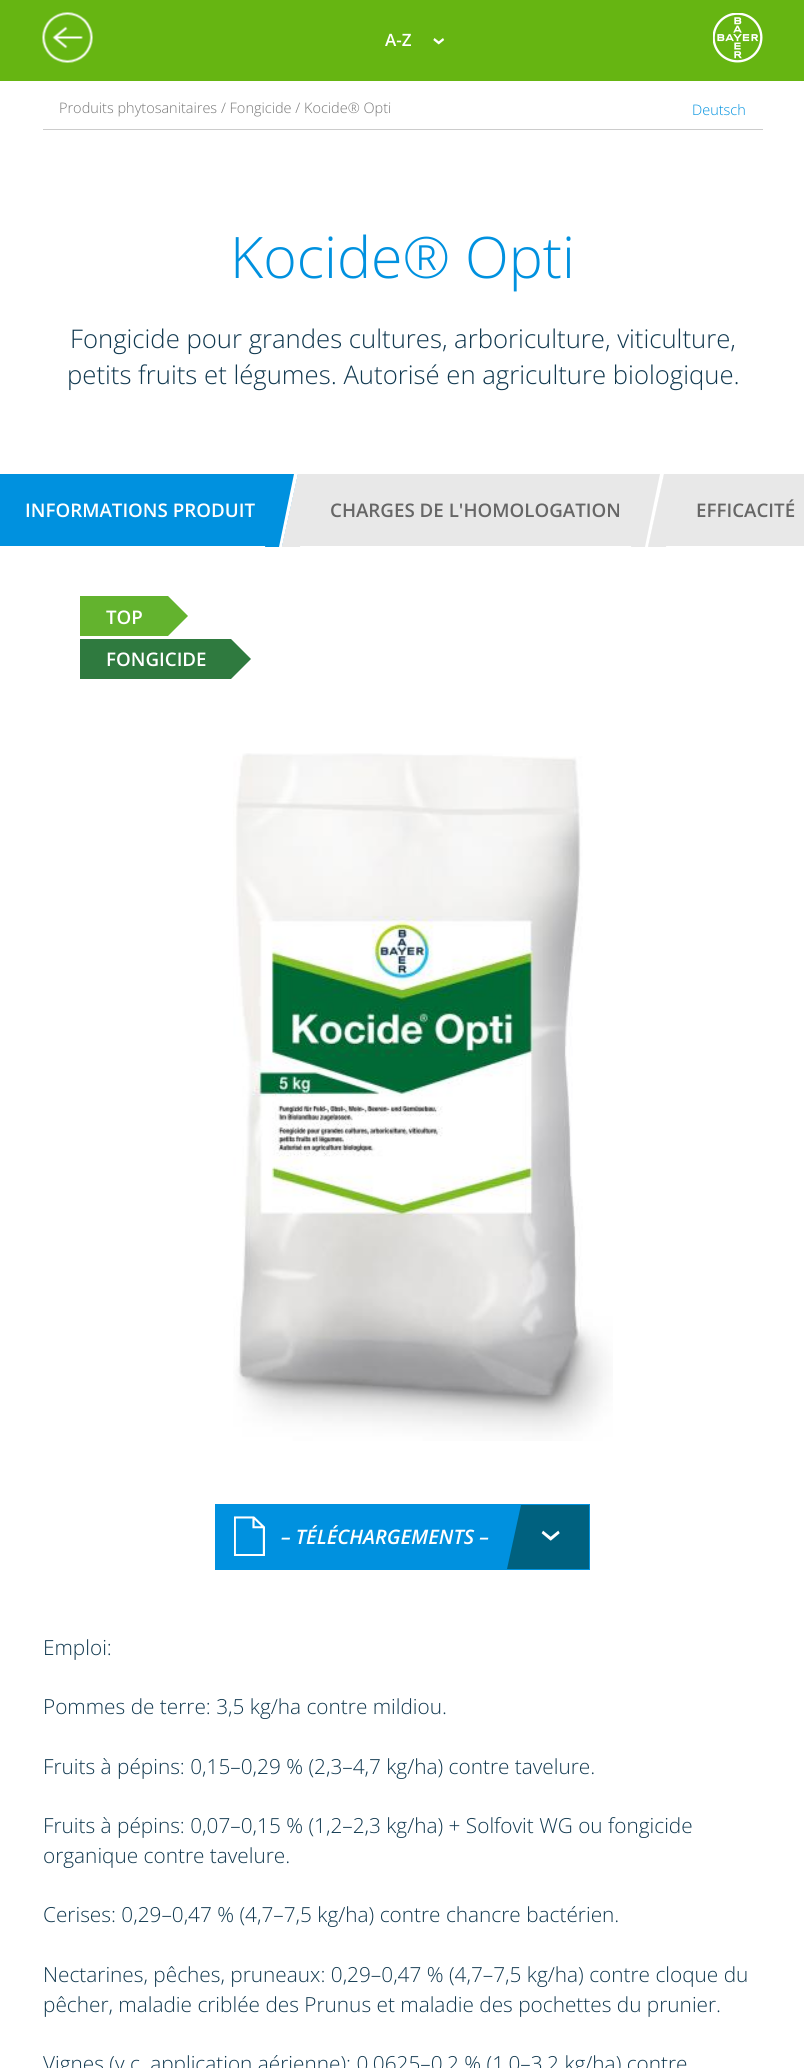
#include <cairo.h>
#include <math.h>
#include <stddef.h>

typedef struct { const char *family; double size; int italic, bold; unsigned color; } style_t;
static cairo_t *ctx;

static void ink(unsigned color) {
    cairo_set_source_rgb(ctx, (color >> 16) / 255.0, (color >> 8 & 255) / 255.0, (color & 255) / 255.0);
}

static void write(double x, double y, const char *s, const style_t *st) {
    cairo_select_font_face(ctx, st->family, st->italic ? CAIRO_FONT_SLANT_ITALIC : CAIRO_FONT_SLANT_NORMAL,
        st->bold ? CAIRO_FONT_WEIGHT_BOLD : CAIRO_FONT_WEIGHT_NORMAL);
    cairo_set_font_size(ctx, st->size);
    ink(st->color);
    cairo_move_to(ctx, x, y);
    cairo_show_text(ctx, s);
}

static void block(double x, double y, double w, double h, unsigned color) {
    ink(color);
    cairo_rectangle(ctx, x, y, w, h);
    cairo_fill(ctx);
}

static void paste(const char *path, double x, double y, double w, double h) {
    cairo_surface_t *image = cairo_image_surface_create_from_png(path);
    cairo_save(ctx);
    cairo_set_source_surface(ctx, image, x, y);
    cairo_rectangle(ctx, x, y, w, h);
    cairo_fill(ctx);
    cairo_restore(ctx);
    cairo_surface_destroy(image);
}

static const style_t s1 = {"Open Sans SemiBold", 17, 0, 0, 0xffffff};
static const style_t s2 = {"Open Sans SemiBold", 25, 0, 0, 0xffffff};
static const style_t s3 = {"Open Sans Light", 14.5, 0, 0, 0x777777};
static const style_t s4 = {"Open Sans Light", 14.5, 0, 0, 0x0091df};
static const style_t s5 = {"Open Sans Light", 57.25, 0, 0, 0x0091df};
static const style_t s6 = {"Open Sans Light", 25.7, 0, 0, 0x10384f};
static const style_t s7 = {"Open Sans SemiBold", 18.75, 0, 0, 0xffffff};
static const style_t s8 = {"Open Sans SemiBold", 18.75, 0, 0, 0x666666};
static const style_t s9 = {"Open Sans SemiBold", 20, 1, 0, 0xffffff};
static const style_t s10 = {"Open Sans", 44, 0, 0, 0xffffff};
static const style_t s11 = {"Open Sans Light", 20.8, 0, 0, 0x10384f};

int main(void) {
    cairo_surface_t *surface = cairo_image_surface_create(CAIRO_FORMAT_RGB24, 804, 2068);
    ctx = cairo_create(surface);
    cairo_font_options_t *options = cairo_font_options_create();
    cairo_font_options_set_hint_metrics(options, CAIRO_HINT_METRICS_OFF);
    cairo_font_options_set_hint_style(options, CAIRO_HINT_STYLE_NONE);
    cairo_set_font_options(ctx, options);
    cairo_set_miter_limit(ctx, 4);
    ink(0xffffff);
    cairo_paint(ctx);
    block(0, 0, 804, 81, 0x66b512);
    paste("pic1.png", 42, 12, 51, 51);
    paste("pic2.png", 713, 13, 50, 50);
    write(385, 46, "A-Z", &s1);
    cairo_save(ctx);
    cairo_translate(ctx, 432, 37);
    cairo_rotate(ctx, 90 * M_PI / 180);
    write(0, 0, "›", &s2);
    cairo_restore(ctx);
    block(43, 129, 720, 1, 0xcccccc);
    write(59, 113, "Produits phytosanitaires / Fongicide / Kocide® Opti", &s3);
    write(692, 115, "Deutsch", &s4);
    write(230, 278, "Kocide® Opti", &s5);
    write(70, 348, "Fongicide pour grandes cultures, arboriculture, viticulture,", &s6);
    write(67, 384, "petits fruits et légumes. Autorisé en agriculture biologique.", &s6);
    block(0, 474, 280, 72, 0x0091df);
    write(25, 517, "INFORMATIONS PRODUIT", &s7);
    ink(0x0091df);
    cairo_new_path(ctx);
    cairo_move_to(ctx, 280, 474);
    cairo_line_to(ctx, 298, 474);
    cairo_line_to(ctx, 282, 547);
    cairo_line_to(ctx, 265, 547);
    cairo_close_path(ctx);
    cairo_fill(ctx);
    ink(0xffffff);
    cairo_new_path(ctx);
    cairo_move_to(ctx, 294, 474);
    cairo_line_to(ctx, 298, 474);
    cairo_line_to(ctx, 282, 547);
    cairo_line_to(ctx, 279, 547);
    cairo_close_path(ctx);
    cairo_fill(ctx);
    block(300, 474, 346, 72, 0xe8e8e8);
    cairo_new_path(ctx);
    cairo_move_to(ctx, 298, 474);
    cairo_line_to(ctx, 315, 474);
    cairo_line_to(ctx, 300, 547);
    cairo_line_to(ctx, 282, 547);
    cairo_close_path(ctx);
    cairo_fill(ctx);
    write(330, 517, "CHARGES DE L'HOMOLOGATION", &s8);
    ink(0xe8e8e8);
    cairo_new_path(ctx);
    cairo_move_to(ctx, 646, 474);
    cairo_line_to(ctx, 664, 474);
    cairo_line_to(ctx, 648, 547);
    cairo_line_to(ctx, 631, 547);
    cairo_close_path(ctx);
    cairo_fill(ctx);
    ink(0xffffff);
    cairo_new_path(ctx);
    cairo_move_to(ctx, 660, 474);
    cairo_line_to(ctx, 664, 474);
    cairo_line_to(ctx, 648, 547);
    cairo_line_to(ctx, 645, 547);
    cairo_close_path(ctx);
    cairo_fill(ctx);
    block(666, 474, 138, 72, 0xe8e8e8);
    cairo_new_path(ctx);
    cairo_move_to(ctx, 664, 474);
    cairo_line_to(ctx, 681, 474);
    cairo_line_to(ctx, 666, 547);
    cairo_line_to(ctx, 648, 547);
    cairo_close_path(ctx);
    cairo_fill(ctx);
    write(696, 517, "EFFICACITÉ", &s8);
    block(80, 596, 88, 40, 0x63b32e);
    write(106, 624, "TOP", &s7);
    ink(0x63b32e);
    cairo_new_path(ctx);
    cairo_move_to(ctx, 168, 636);
    cairo_line_to(ctx, 168, 596);
    cairo_line_to(ctx, 188, 616);
    cairo_close_path(ctx);
    cairo_fill(ctx);
    block(80, 639, 151, 40, 0x2f7a3f);
    write(106, 666, "FONGICIDE", &s7);
    ink(0x2f7a3f);
    cairo_new_path(ctx);
    cairo_move_to(ctx, 231, 679);
    cairo_line_to(ctx, 231, 639);
    cairo_line_to(ctx, 251, 659);
    cairo_close_path(ctx);
    cairo_fill(ctx);
    paste("pic3.png", 233, 753, 380, 688);
    block(215, 1504, 375, 66, 0x0091df);
    paste("pic4.png", 234, 1516, 31, 40);
    write(281, 1544, "– TÉLÉCHARGEMENTS –", &s9);
    cairo_save(ctx);
    cairo_rectangle(ctx, 216, 1505, 373, 64);
    cairo_clip(ctx);
    ink(0x00617f);
    cairo_new_path(ctx);
    cairo_move_to(ctx, 521, 1505);
    cairo_line_to(ctx, 608, 1505);
    cairo_line_to(ctx, 594, 1569);
    cairo_line_to(ctx, 507, 1569);
    cairo_close_path(ctx);
    cairo_fill(ctx);
    cairo_restore(ctx);
    cairo_save(ctx);
    cairo_translate(ctx, 539, 1529);
    cairo_rotate(ctx, 90 * M_PI / 180);
    write(0, 0, "›", &s10);
    cairo_restore(ctx);
    write(43, 1655, "Emploi:", &s11);
    write(43, 1714, "Pommes de terre: 3,5 kg/ha contre mildiou.", &s11);
    write(43, 1774, "Fruits à pépins: 0,15–0,29 % (2,3–4,7 kg/ha) contre tavelure.", &s11);
    write(43, 1833, "Fruits à pépins: 0,07–0,15 % (1,2–2,3 kg/ha) + Solfovit WG ou fongicide", &s11);
    write(43, 1863, "organique contre tavelure.", &s11);
    write(43, 1922, "Cerises: 0,29–0,47 % (4,7–7,5 kg/ha) contre chancre bactérien.", &s11);
    write(43, 1982, "Nectarines, pêches, pruneaux: 0,29–0,47 % (4,7–7,5 kg/ha) contre cloque du", &s11);
    write(43, 2012, "pêcher, maladie criblée des Prunus et maladie des pochettes du prunier.", &s11);
    write(43, 2071, "Vignes (y c. application aérienne): 0,0625–0,2 % (1,0–3,2 kg/ha) contre", &s11);
    cairo_surface_write_to_png(surface, "screenshot.png");
    cairo_font_options_destroy(options);
    cairo_destroy(ctx);
    cairo_surface_destroy(surface);
    return 0;
}
